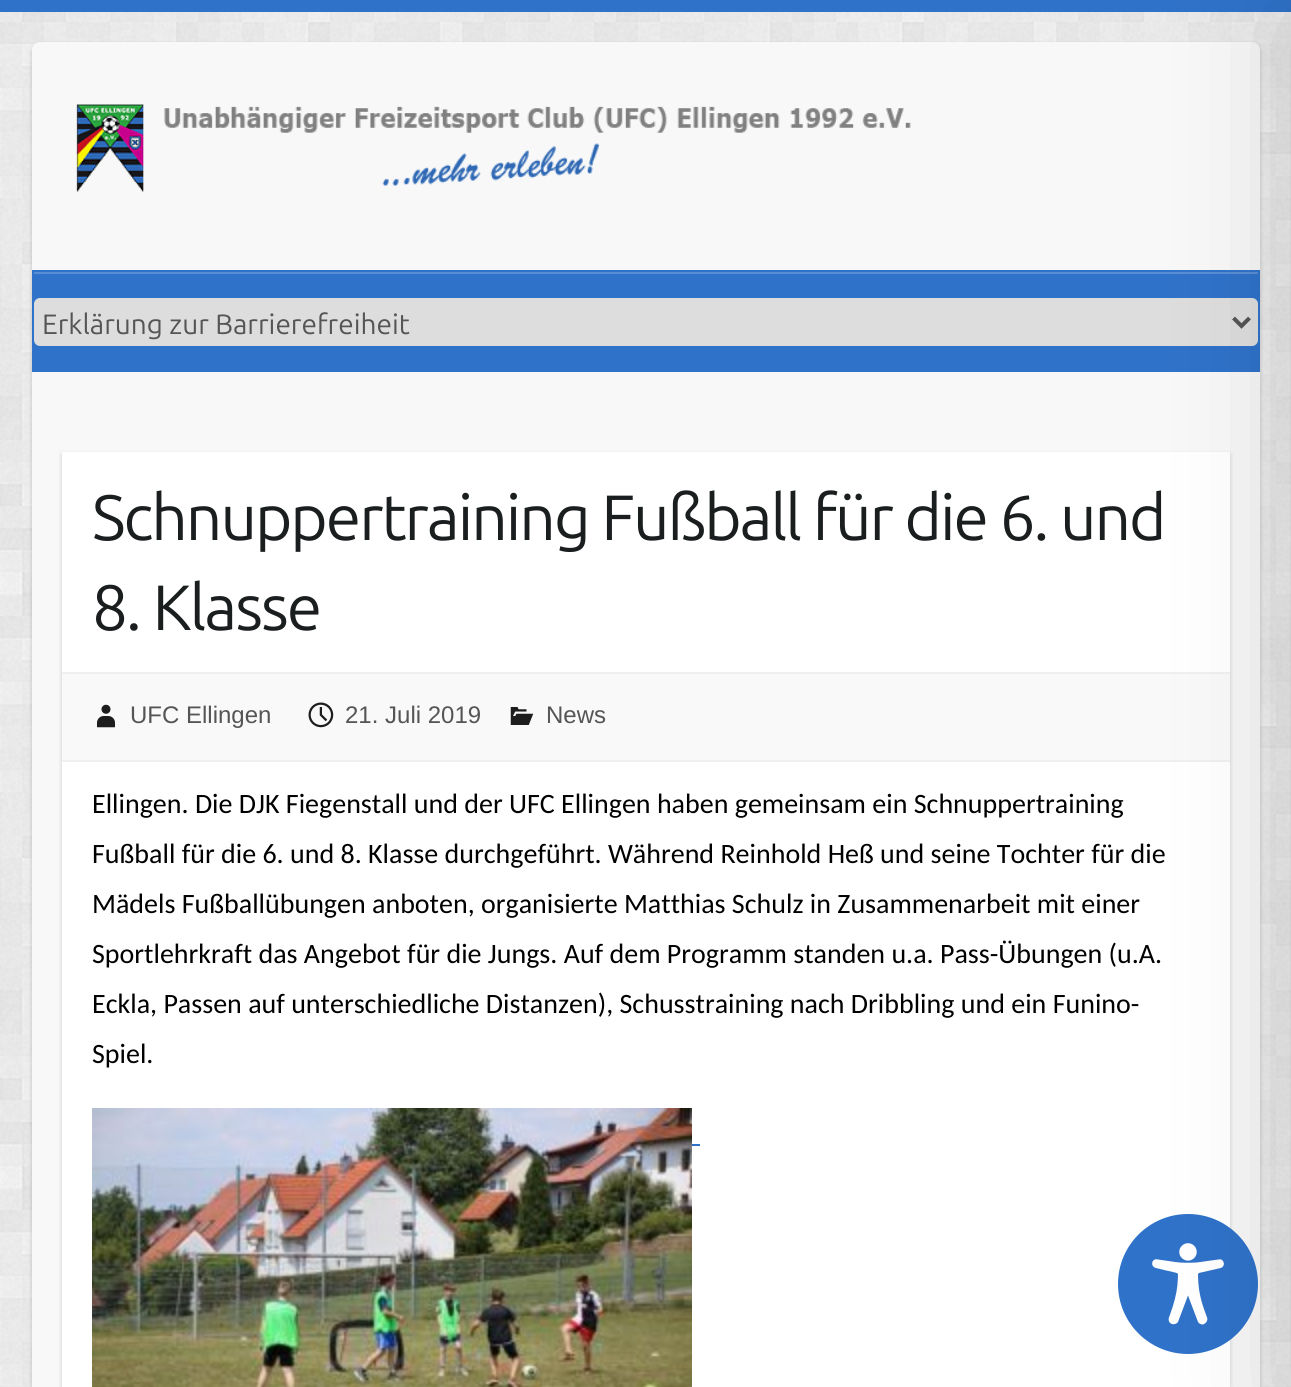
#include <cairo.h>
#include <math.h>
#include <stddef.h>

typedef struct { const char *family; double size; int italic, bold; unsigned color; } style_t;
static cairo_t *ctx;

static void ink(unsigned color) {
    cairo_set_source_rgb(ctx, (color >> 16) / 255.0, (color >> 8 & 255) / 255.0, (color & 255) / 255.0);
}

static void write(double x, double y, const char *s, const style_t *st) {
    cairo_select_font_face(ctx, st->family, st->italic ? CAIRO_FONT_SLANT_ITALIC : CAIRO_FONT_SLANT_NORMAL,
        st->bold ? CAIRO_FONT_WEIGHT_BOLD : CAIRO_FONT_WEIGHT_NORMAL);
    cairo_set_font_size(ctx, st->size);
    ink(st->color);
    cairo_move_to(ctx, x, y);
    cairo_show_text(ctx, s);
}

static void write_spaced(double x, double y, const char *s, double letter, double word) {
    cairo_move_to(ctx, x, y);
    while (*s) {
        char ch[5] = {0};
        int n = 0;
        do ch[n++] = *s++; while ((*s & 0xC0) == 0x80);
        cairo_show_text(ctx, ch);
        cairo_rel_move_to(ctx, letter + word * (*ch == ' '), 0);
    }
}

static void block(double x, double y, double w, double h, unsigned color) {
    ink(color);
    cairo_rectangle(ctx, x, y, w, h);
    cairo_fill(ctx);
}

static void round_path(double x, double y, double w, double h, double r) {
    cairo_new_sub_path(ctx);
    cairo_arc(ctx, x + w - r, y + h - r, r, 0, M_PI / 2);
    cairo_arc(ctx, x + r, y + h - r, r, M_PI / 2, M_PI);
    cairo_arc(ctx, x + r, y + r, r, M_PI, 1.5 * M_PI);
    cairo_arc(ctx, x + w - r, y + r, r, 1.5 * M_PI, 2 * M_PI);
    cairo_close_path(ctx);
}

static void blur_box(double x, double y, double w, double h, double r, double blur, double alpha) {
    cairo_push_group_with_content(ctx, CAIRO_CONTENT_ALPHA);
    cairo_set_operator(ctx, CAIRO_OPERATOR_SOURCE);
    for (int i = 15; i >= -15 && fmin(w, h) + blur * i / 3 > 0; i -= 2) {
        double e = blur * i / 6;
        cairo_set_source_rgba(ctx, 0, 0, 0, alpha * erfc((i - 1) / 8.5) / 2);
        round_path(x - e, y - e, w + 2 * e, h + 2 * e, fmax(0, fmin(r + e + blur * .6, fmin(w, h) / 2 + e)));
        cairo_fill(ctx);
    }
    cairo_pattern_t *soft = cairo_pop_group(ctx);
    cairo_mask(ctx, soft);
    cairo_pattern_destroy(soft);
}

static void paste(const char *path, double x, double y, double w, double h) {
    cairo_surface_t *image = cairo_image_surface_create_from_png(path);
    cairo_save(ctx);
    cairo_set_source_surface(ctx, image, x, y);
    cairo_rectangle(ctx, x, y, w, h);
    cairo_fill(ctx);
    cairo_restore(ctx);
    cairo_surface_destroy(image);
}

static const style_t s1 = {"Ubuntu", 28, 0, 0, 0x555555};
static const style_t s2 = {"Liberation Sans", 24, 0, 0, 0x555555};
static const style_t s3 = {"Carlito", 28, 0, 0, 0x000000};

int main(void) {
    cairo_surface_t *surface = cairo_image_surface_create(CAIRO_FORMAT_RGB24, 1291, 1387);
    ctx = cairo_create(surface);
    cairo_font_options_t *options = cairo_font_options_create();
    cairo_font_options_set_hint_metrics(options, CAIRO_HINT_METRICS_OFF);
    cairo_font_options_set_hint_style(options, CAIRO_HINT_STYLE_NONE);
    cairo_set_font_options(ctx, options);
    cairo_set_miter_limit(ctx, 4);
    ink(0xffffff);
    cairo_paint(ctx);
    paste("pic1.png", 0, 12, 1291, 1375);
    block(0, 0, 1291, 12, 0x2f72c9);
    ink(0x000000);
    blur_box(32, 44, 1228, 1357, 8, 2, 0.2);
    ink(0xf8f8f8);
    round_path(32, 42, 1228, 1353, 8);
    cairo_fill(ctx);
    paste("pic2.png", 76, 104, 835, 89);
    block(32, 270, 1228, 102, 0x2f72c9);
    block(34, 272, 1224, 2, 0x598ed4);
    ink(0xdddddd);
    round_path(34, 298, 1224, 48, 6);
    cairo_fill(ctx);
    cairo_new_path(ctx);
    cairo_move_to(ctx, 1233.5, 318);
    cairo_line_to(ctx, 1241.5, 326);
    cairo_line_to(ctx, 1249.5, 318);
    ink(0x555555);
    cairo_set_line_width(ctx, 4);
    cairo_stroke(ctx);
    write(42, 334, "Erklärung zur Barrierefreiheit", &s1);
    ink(0x000000);
    blur_box(62, 454, 1168, 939, 0, 2, 0.2);
    block(62, 452, 1168, 935, 0xffffff);
    cairo_set_font_size(ctx, 64);
    ink(0x1b1e1f);
    write_spaced(92, 540, "Schnuppertraining Fußball für die 6. und", -2, 0);
    write_spaced(92, 630, "8. Klasse", -2, 0);
    block(62, 674, 1168, 86, 0xf9f9f9);
    block(62, 672, 1168, 2, 0xf0f0f0);
    block(62, 760, 1168, 2, 0xf0f0f0);
    paste("pic3.png", 97, 704, 18, 24);
    write(130, 723, "UFC Ellingen", &s2);
    paste("pic4.png", 308, 702, 26, 26);
    write(345, 723, "21. Juli 2019", &s2);
    paste("pic5.png", 510, 707, 24, 18);
    write(546, 723, "News", &s2);
    write(92, 813, "Ellingen. Die DJK Fiegenstall und der UFC Ellingen haben gemeinsam ein Schnuppertraining", &s3);
    write(92, 863, "Fußball für die 6. und 8. Klasse durchgeführt. Während Reinhold Heß und seine Tochter für die", &s3);
    write(92, 913, "Mädels Fußballübungen anboten, organisierte Matthias Schulz in Zusammenarbeit mit einer", &s3);
    write(92, 963, "Sportlehrkraft das Angebot für die Jungs. Auf dem Programm standen u.a. Pass-Übungen (u.A.", &s3);
    write(92, 1013, "Eckla, Passen auf unterschiedliche Distanzen), Schusstraining nach Dribbling und ein Funino-", &s3);
    write(92, 1063, "Spiel.", &s3);
    paste("pic6.png", 92, 1108, 600, 279);
    block(692, 1144, 8, 2, 0x2f72c9);
    cairo_arc(ctx, 1188, 1284, 70, 0, 2 * M_PI);
    cairo_fill(ctx);
    paste("pic7.png", 1152, 1243, 72, 82);
    ink(0x000000);
    blur_box(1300, 20, 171, 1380, 0, 60, 0.2);
    cairo_surface_write_to_png(surface, "screenshot.png");
    cairo_font_options_destroy(options);
    cairo_destroy(ctx);
    cairo_surface_destroy(surface);
    return 0;
}
